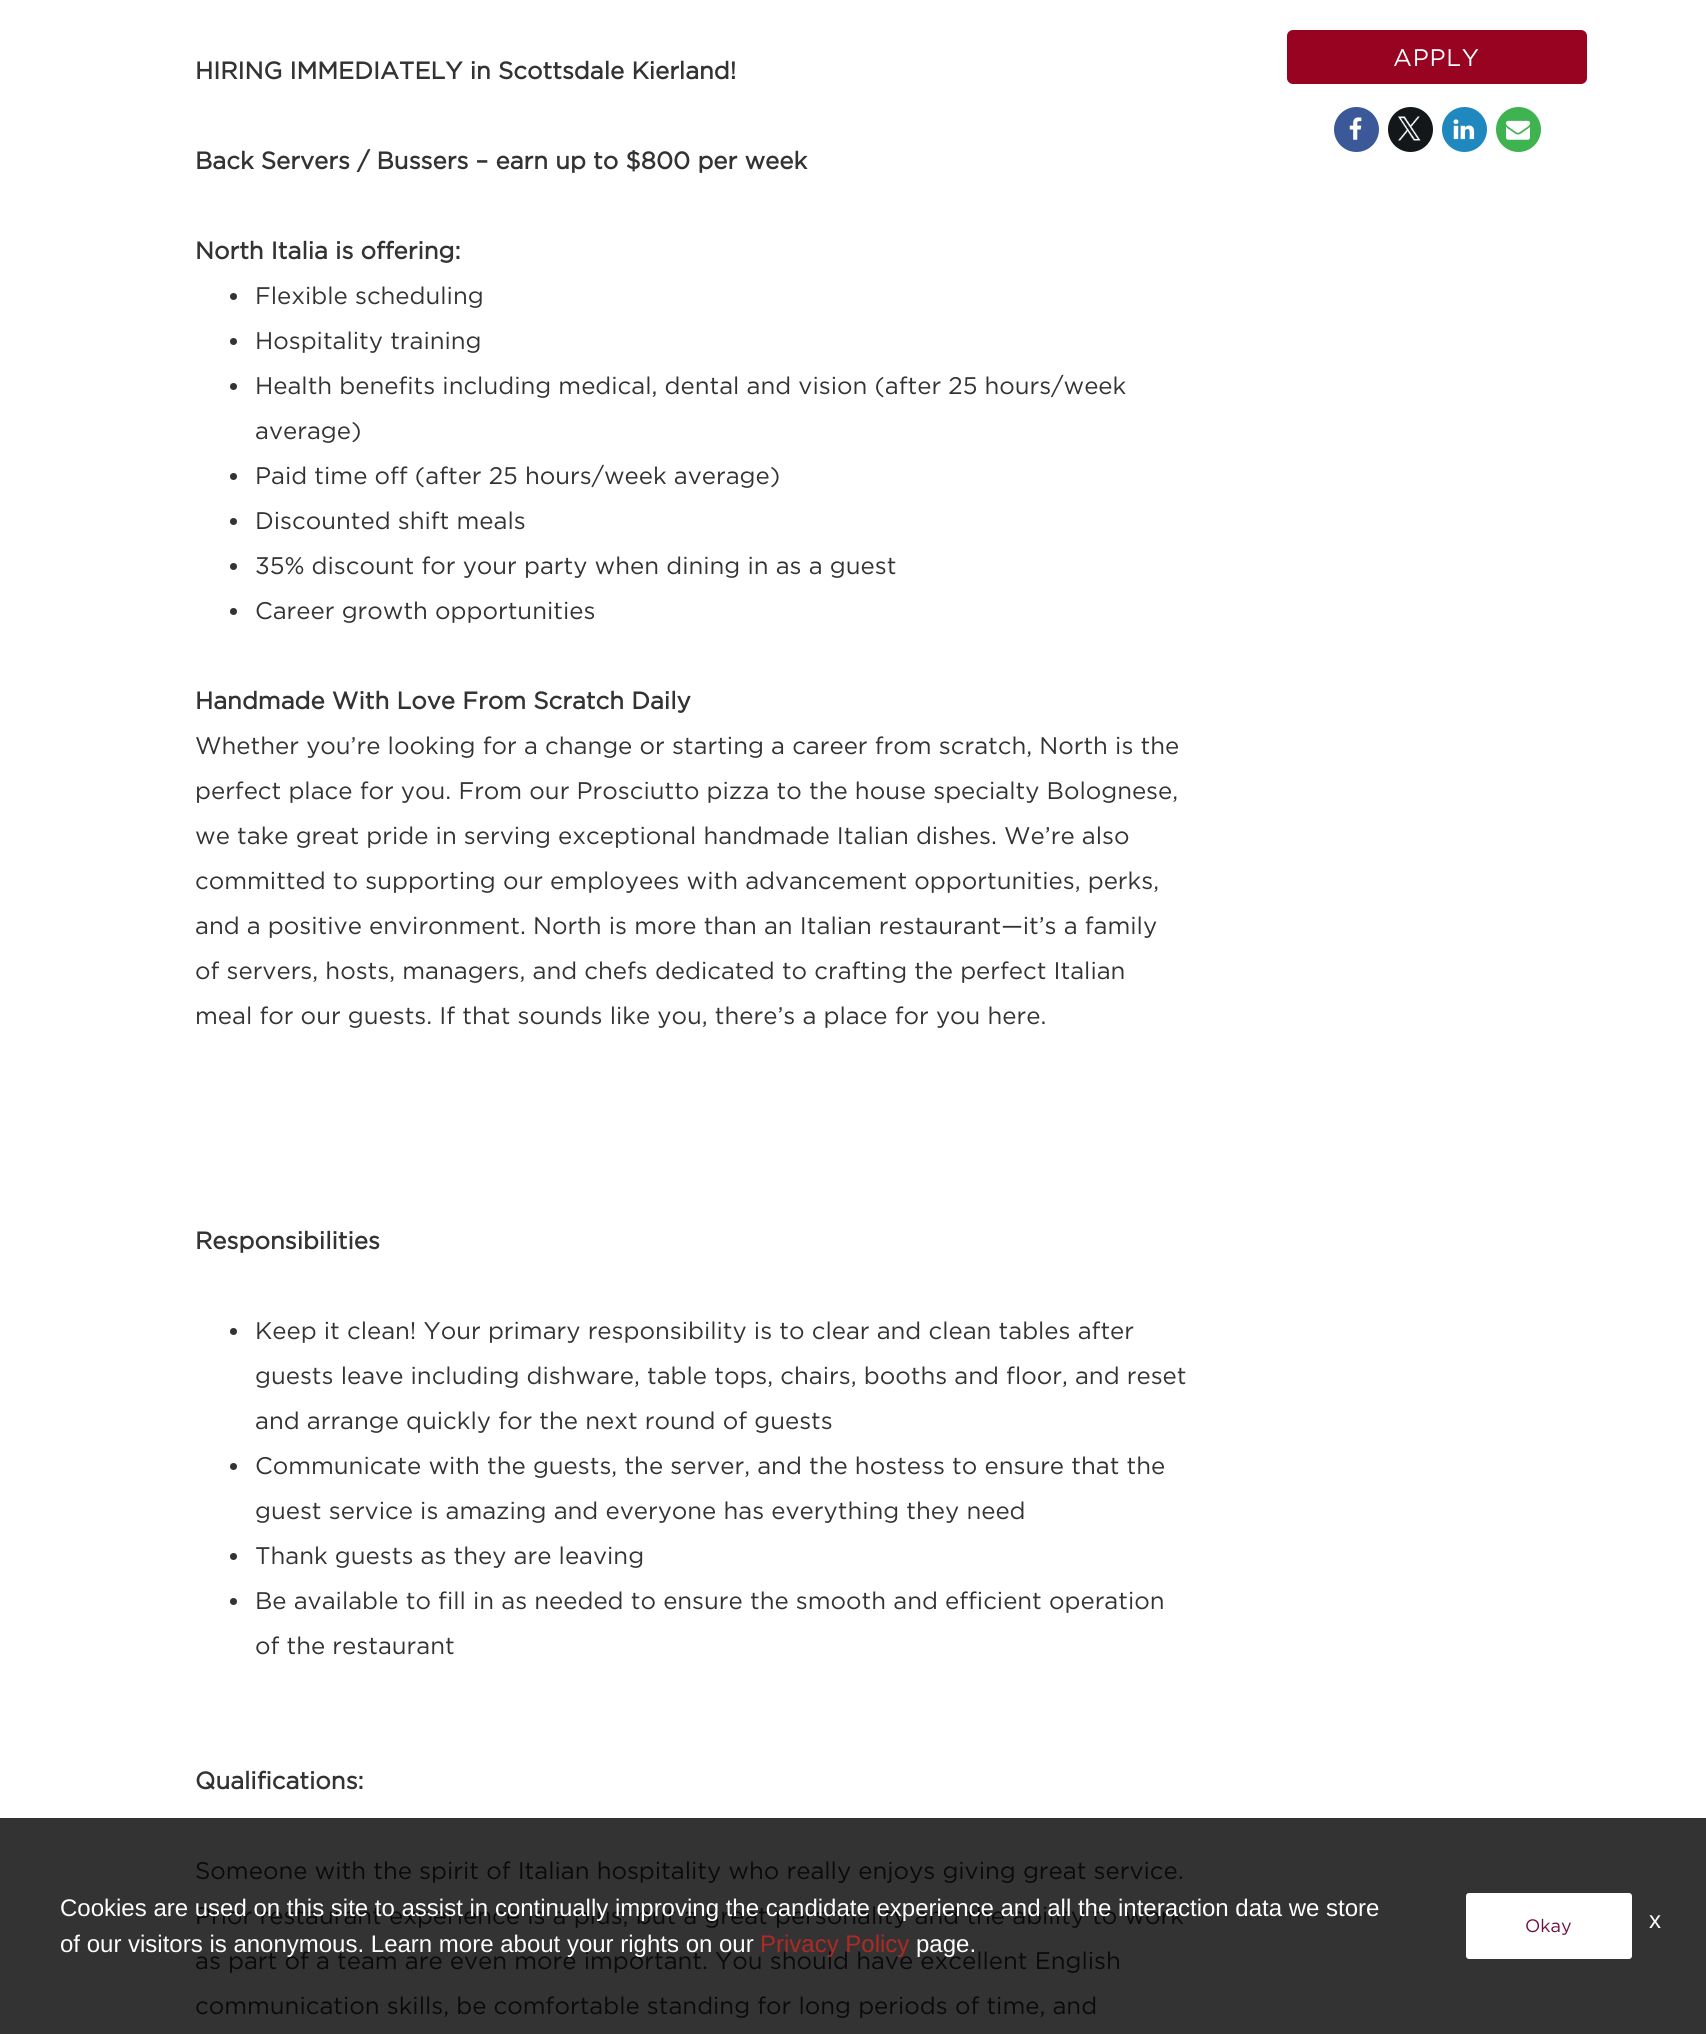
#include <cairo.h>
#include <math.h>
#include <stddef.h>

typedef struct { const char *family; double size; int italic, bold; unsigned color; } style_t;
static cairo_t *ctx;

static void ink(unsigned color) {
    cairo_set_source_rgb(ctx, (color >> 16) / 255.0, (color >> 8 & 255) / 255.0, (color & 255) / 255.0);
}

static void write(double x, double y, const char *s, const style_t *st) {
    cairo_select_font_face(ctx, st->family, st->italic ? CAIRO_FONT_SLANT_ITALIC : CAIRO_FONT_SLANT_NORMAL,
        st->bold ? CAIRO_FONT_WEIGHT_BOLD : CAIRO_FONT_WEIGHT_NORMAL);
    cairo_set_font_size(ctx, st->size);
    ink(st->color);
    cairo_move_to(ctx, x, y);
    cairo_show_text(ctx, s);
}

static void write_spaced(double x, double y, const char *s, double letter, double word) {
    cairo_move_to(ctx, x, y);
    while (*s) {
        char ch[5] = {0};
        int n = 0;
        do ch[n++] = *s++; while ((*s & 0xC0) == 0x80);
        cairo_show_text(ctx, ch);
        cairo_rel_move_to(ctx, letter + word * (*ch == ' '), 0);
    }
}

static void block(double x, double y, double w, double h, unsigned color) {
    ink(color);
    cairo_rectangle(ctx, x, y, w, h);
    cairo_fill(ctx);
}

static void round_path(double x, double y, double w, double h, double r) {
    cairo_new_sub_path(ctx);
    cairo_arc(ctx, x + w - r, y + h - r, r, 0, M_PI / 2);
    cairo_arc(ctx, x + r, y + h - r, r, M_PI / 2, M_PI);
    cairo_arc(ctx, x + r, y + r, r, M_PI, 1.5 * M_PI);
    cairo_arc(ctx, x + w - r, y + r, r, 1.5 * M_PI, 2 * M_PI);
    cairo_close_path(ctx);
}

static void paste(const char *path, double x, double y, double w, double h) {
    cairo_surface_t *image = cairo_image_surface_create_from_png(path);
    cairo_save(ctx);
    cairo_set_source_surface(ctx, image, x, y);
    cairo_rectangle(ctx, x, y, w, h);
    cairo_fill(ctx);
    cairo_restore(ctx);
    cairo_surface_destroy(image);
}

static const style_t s1 = {"Gotham", 24, 0, 1, 0x333333};
static const style_t s2 = {"Gotham", 24, 0, 0, 0x333333};
static const style_t s3 = {"Gotham", 24, 0, 0, 0x0a0a0a};
static const style_t s4 = {"Liberation Sans", 24, 0, 0, 0xffffff};
static const style_t s5 = {"Liberation Sans", 24, 0, 0, 0xae2a25};
static const style_t s6 = {"Gotham", 18, 0, 0, 0x6f0f44};

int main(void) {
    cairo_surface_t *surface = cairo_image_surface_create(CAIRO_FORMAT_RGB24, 1706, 2034);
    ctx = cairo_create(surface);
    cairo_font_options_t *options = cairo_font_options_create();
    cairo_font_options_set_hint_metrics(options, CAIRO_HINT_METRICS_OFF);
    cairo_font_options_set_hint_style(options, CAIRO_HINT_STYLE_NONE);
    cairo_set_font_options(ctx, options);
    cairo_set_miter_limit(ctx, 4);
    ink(0xffffff);
    cairo_paint(ctx);
    block(0, 1818, 1706, 216, 0x333333);
    ink(0x980321);
    round_path(1288, 31, 298, 52, 5);
    cairo_fill_preserve(ctx);
    cairo_stroke(ctx);
    cairo_select_font_face(ctx, "Gotham", CAIRO_FONT_SLANT_NORMAL, CAIRO_FONT_WEIGHT_NORMAL);
    cairo_set_font_size(ctx, 24);
    ink(0xffffff);
    write_spaced(1393, 66, "APPLY", 0.75, 0);
    ink(0x3b5998);
    cairo_new_path(ctx);
    cairo_arc(ctx, 1356.5, 129.5, 22.5, 0, 2 * M_PI);
    cairo_fill(ctx);
    paste("pic1.png", 1349, 117, 13, 23);
    ink(0x14171a);
    cairo_arc(ctx, 1410.5, 129.5, 22.5, 0, 2 * M_PI);
    cairo_fill(ctx);
    paste("pic2.png", 1398, 116, 23, 25);
    ink(0x1f88be);
    cairo_arc(ctx, 1464.5, 129.5, 22.5, 0, 2 * M_PI);
    cairo_fill(ctx);
    paste("pic3.png", 1453, 119, 22, 21);
    ink(0x3fb34f);
    cairo_arc(ctx, 1518.5, 129.5, 22.5, 0, 2 * M_PI);
    cairo_fill(ctx);
    paste("pic4.png", 1506, 120, 24, 20);
    write(195, 79, "HIRING IMMEDIATELY in Scottsdale Kierland!", &s1);
    write(195, 169, "Back Servers / Bussers – earn up to $800 per week", &s1);
    write(195, 259, "North Italia is offering:", &s1);
    cairo_new_path(ctx);
    cairo_arc(ctx, 233.5, 296.5, 3.5, 0, 2 * M_PI);
    cairo_fill(ctx);
    write(255, 304, "Flexible scheduling", &s2);
    cairo_new_path(ctx);
    cairo_arc(ctx, 233.5, 341.5, 3.5, 0, 2 * M_PI);
    cairo_fill(ctx);
    write(255, 349, "Hospitality training", &s2);
    cairo_new_path(ctx);
    cairo_arc(ctx, 233.5, 386.5, 3.5, 0, 2 * M_PI);
    cairo_fill(ctx);
    write(255, 394, "Health benefits including medical, dental and vision (after 25 hours/week", &s2);
    write(255, 439, "average)", &s2);
    cairo_new_path(ctx);
    cairo_arc(ctx, 233.5, 476.5, 3.5, 0, 2 * M_PI);
    cairo_fill(ctx);
    write(255, 484, "Paid time off (after 25 hours/week average)", &s2);
    cairo_new_path(ctx);
    cairo_arc(ctx, 233.5, 521.5, 3.5, 0, 2 * M_PI);
    cairo_fill(ctx);
    write(255, 529, "Discounted shift meals", &s2);
    cairo_new_path(ctx);
    cairo_arc(ctx, 233.5, 566.5, 3.5, 0, 2 * M_PI);
    cairo_fill(ctx);
    write(255, 574, "35% discount for your party when dining in as a guest", &s2);
    cairo_new_path(ctx);
    cairo_arc(ctx, 233.5, 611.5, 3.5, 0, 2 * M_PI);
    cairo_fill(ctx);
    write(255, 619, "Career growth opportunities", &s2);
    write(195, 709, "Handmade With Love From Scratch Daily", &s1);
    write(195, 754, "Whether you’re looking for a change or starting a career from scratch, North is the", &s2);
    write(195, 799, "perfect place for you. From our Prosciutto pizza to the house specialty Bolognese,", &s2);
    write(195, 844, "we take great pride in serving exceptional handmade Italian dishes. We’re also", &s2);
    write(195, 889, "committed to supporting our employees with advancement opportunities, perks,", &s2);
    write(195, 934, "and a positive environment. North is more than an Italian restaurant—it’s a family", &s2);
    write(195, 979, "of servers, hosts, managers, and chefs dedicated to crafting the perfect Italian", &s2);
    write(195, 1024, "meal for our guests. If that sounds like you, there’s a place for you here.", &s2);
    write(195, 1249, "Responsibilities", &s1);
    cairo_new_path(ctx);
    cairo_arc(ctx, 233.5, 1331.5, 3.5, 0, 2 * M_PI);
    cairo_fill(ctx);
    write(255, 1339, "Keep it clean! Your primary responsibility is to clear and clean tables after", &s2);
    write(255, 1384, "guests leave including dishware, table tops, chairs, booths and floor, and reset", &s2);
    write(255, 1429, "and arrange quickly for the next round of guests", &s2);
    cairo_new_path(ctx);
    cairo_arc(ctx, 233.5, 1466.5, 3.5, 0, 2 * M_PI);
    cairo_fill(ctx);
    write(255, 1474, "Communicate with the guests, the server, and the hostess to ensure that the", &s2);
    write(255, 1519, "guest service is amazing and everyone has everything they need", &s2);
    cairo_new_path(ctx);
    cairo_arc(ctx, 233.5, 1556.5, 3.5, 0, 2 * M_PI);
    cairo_fill(ctx);
    write(255, 1564, "Thank guests as they are leaving", &s2);
    cairo_new_path(ctx);
    cairo_arc(ctx, 233.5, 1601.5, 3.5, 0, 2 * M_PI);
    cairo_fill(ctx);
    write(255, 1609, "Be available to fill in as needed to ensure the smooth and efficient operation", &s2);
    write(255, 1654, "of the restaurant", &s2);
    write(195, 1789, "Qualifications:", &s1);
    write(195, 1879, "Someone with the spirit of Italian hospitality who really enjoys giving great service.", &s3);
    write(195, 1924, "Prior restaurant experience is a plus, but a great personality and the ability to work", &s3);
    write(195, 1969, "as part of a team are even more important. You should have excellent English", &s3);
    write(195, 2014, "communication skills, be comfortable standing for long periods of time, and", &s3);
    write(60, 1916, "Cookies are used on this site to assist in continually improving the candidate experience and all the interaction data we store", &s4);
    write(60, 1952, "of our visitors is anonymous. Learn more about your rights on our", &s4);
    write(760, 1952, "Privacy Policy", &s5);
    write(916, 1952, "page.", &s4);
    round_path(1466, 1893, 166, 66, 3);
    cairo_fill(ctx);
    write(1525, 1932, "Okay", &s6);
    write(1649, 1928, "x", &s4);
    cairo_surface_write_to_png(surface, "screenshot.png");
    cairo_font_options_destroy(options);
    cairo_destroy(ctx);
    cairo_surface_destroy(surface);
    return 0;
}
